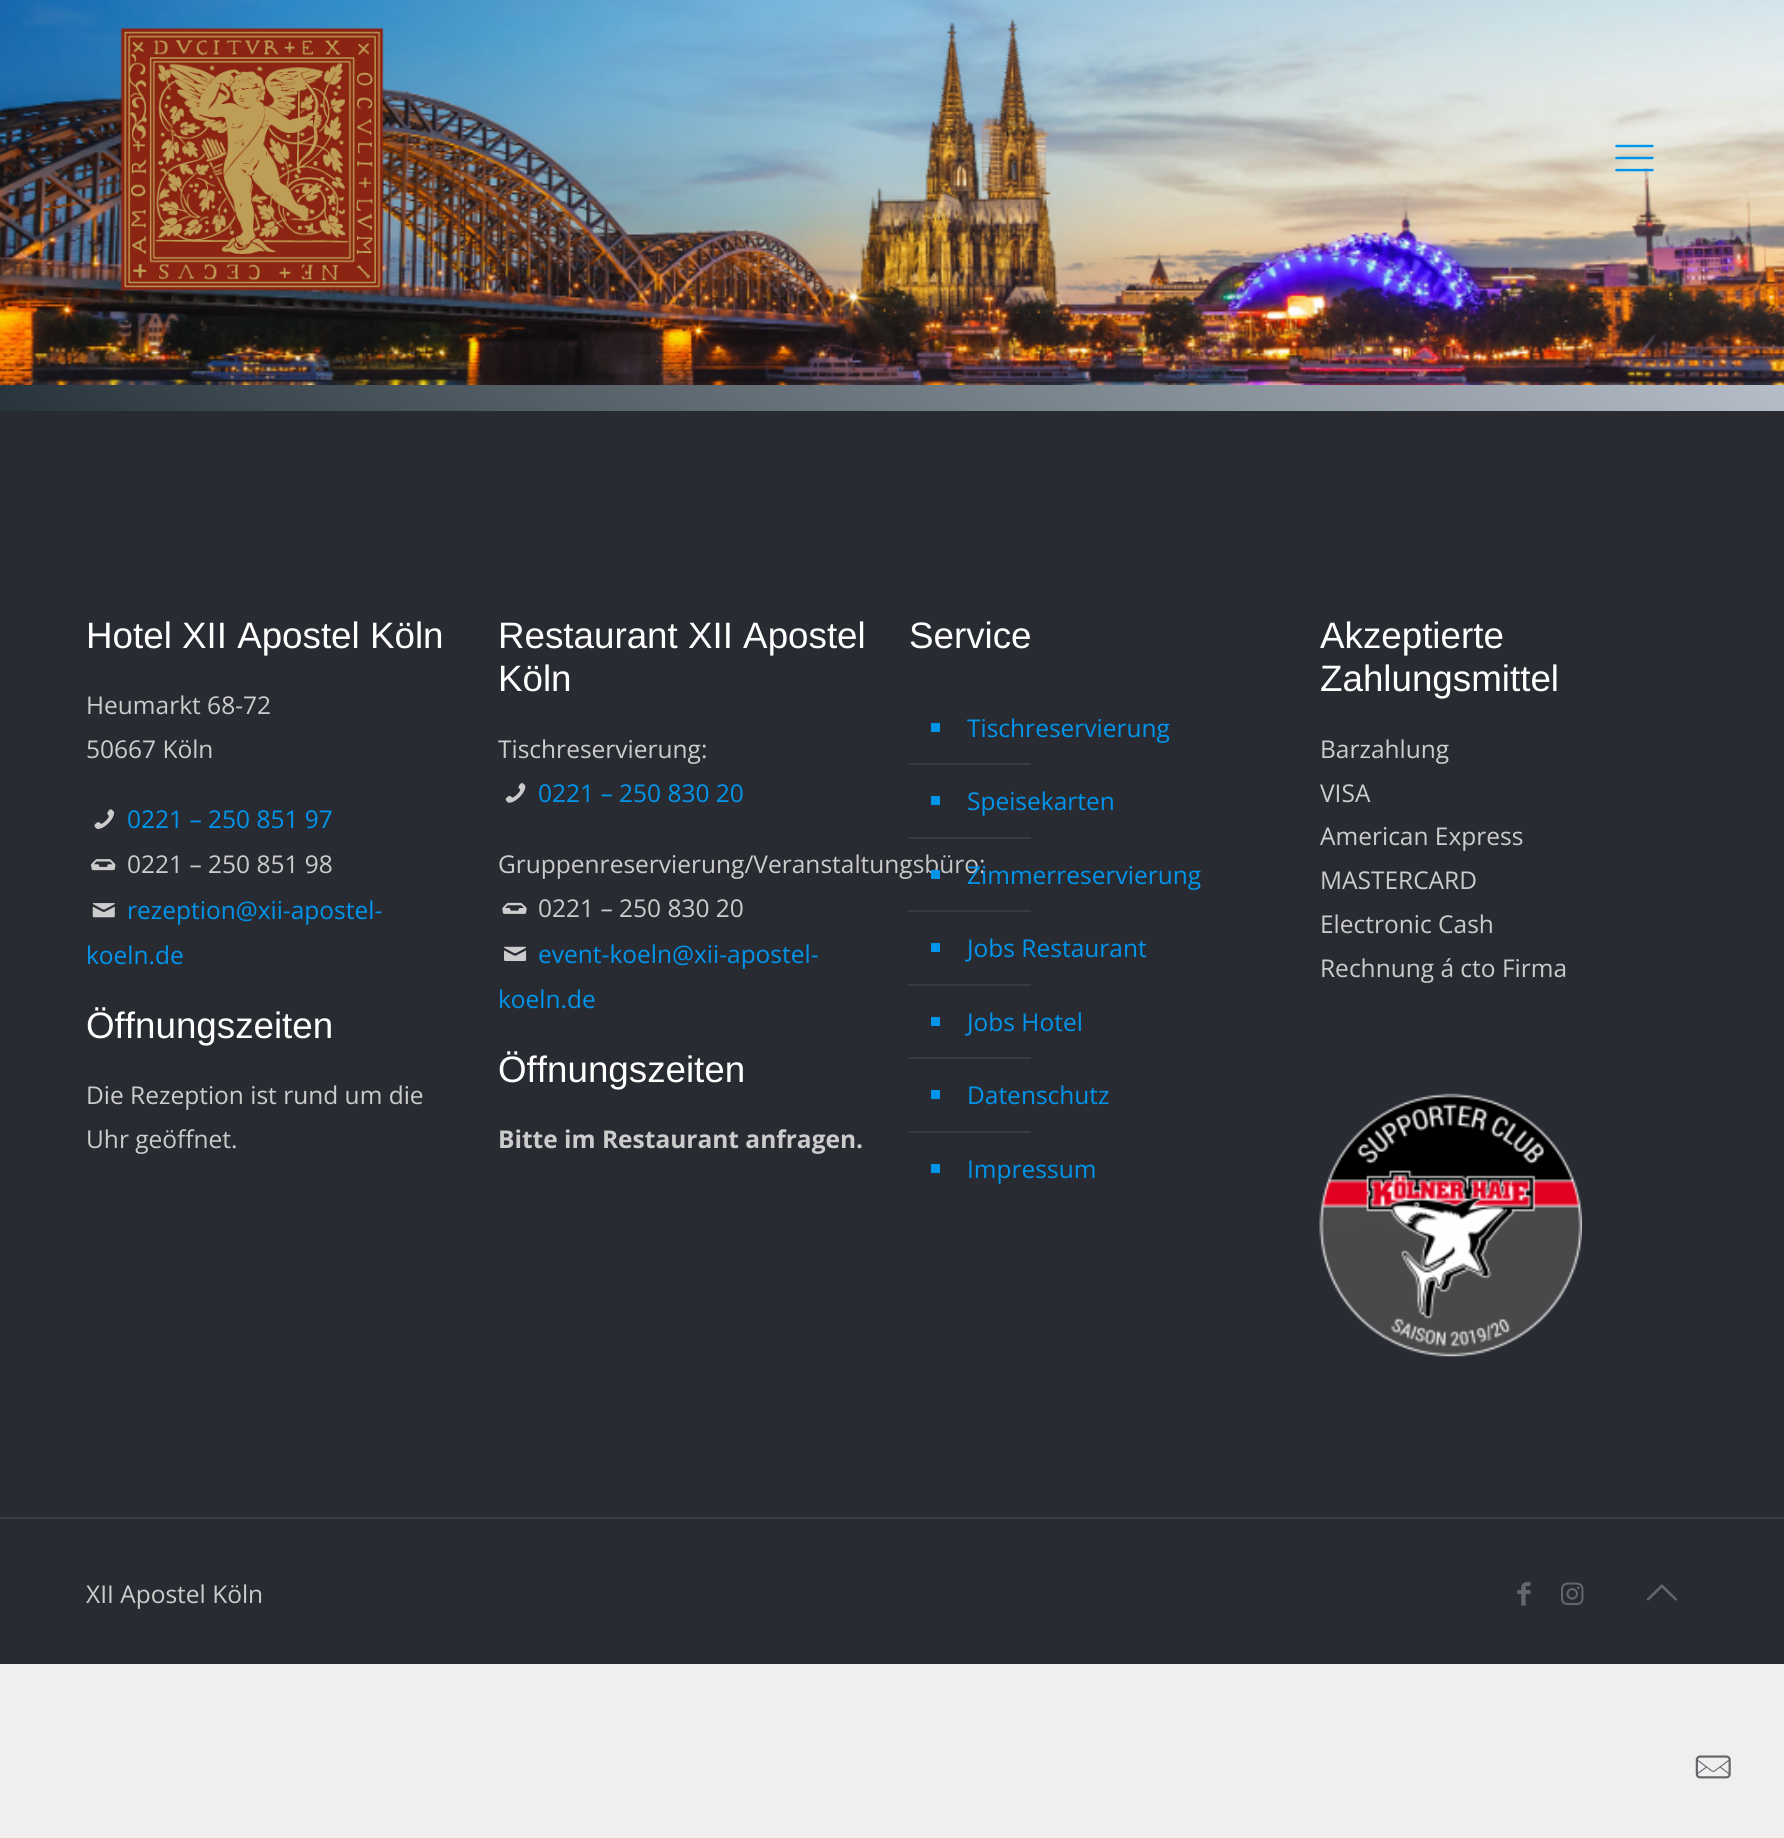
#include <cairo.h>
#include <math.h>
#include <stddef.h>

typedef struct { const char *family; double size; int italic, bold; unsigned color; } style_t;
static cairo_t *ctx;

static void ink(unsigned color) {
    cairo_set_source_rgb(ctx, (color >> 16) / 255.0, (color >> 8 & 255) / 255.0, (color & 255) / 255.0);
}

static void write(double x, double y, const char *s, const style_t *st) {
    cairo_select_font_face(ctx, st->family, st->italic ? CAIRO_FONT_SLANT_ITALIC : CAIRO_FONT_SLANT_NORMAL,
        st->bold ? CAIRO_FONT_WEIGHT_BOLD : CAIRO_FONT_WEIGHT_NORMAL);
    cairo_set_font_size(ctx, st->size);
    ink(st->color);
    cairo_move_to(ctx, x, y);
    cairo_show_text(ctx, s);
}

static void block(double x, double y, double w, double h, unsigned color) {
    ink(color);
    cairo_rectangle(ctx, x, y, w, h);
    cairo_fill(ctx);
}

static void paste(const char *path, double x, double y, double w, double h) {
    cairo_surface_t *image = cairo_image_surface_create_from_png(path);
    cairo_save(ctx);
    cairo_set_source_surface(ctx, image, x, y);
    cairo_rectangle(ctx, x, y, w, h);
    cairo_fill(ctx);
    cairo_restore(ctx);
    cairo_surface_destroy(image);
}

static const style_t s1 = {"Liberation Sans", 36.75, 0, 0, 0xffffff};
static const style_t s2 = {"Open Sans", 24.5, 0, 0, 0xcccccc};
static const style_t s3 = {"Open Sans", 24.5, 0, 0, 0x0095eb};
static const style_t s4 = {"Open Sans", 24.5, 0, 1, 0xcccccc};

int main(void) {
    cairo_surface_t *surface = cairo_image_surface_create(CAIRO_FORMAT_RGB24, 1784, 1838);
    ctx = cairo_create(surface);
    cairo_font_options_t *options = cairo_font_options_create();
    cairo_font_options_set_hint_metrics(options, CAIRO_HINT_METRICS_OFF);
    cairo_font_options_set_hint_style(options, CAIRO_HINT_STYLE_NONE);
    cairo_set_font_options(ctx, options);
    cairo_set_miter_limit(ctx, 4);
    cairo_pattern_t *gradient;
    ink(0xefefef);
    cairo_paint(ctx);
    paste("pic1.png", 0, 0, 1784, 385);
    paste("pic2.png", 120, 28, 264, 263);
    paste("pic3.png", 1615, 144, 39, 28);
    gradient = cairo_pattern_create_linear(440, 851, 1345, -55);
    cairo_pattern_add_color_stop_rgba(gradient, 0, 0.157, 0.204, 0.231, 1);
    cairo_pattern_add_color_stop_rgba(gradient, 0.64, 0.51, 0.549, 0.584, 1);
    cairo_pattern_add_color_stop_rgba(gradient, 1, 0.71, 0.741, 0.784, 1);
    cairo_set_source(ctx, gradient);
    cairo_pattern_destroy(gradient);
    cairo_rectangle(ctx, 0, 385, 1784, 26);
    cairo_fill(ctx);
    block(0, 411, 1784, 1253, 0x292b33);
    write(86, 648, "Hotel XII Apostel Köln", &s1);
    write(86, 714, "Heumarkt 68-72", &s2);
    write(86, 758, "50667 Köln", &s2);
    paste("pic4.png", 94, 809, 21, 20);
    write(127, 828, "0221 – 250 851 97", &s3);
    paste("pic5.png", 91, 859, 25, 12);
    write(127, 873, "0221 – 250 851 98", &s2);
    paste("pic6.png", 92, 903, 23, 15);
    write(127, 919, "rezeption@xii-apostel-", &s3);
    write(86, 964, "koeln.de", &s3);
    write(86, 1038, "Öffnungszeiten", &s1);
    write(86, 1104, "Die Rezeption ist rund um die", &s2);
    write(86, 1148, "Uhr geöffnet.", &s2);
    write(498, 648, "Restaurant XII Apostel", &s1);
    write(498, 691, "Köln", &s1);
    write(498, 758, "Tischreservierung:", &s2);
    paste("pic7.png", 505, 783, 21, 20);
    write(538, 802, "0221 – 250 830 20", &s3);
    write(498, 873, "Gruppenreservierung/Veranstaltungsbüro:", &s2);
    paste("pic8.png", 502, 902, 25, 12);
    write(538, 917, "0221 – 250 830 20", &s2);
    paste("pic9.png", 504, 946, 23, 15);
    write(538, 963, "event-koeln@xii-apostel-", &s3);
    write(498, 1008, "koeln.de", &s3);
    write(498, 1082, "Öffnungszeiten", &s1);
    write(498, 1148, "Bitte im Restaurant anfragen.", &s4);
    write(909, 648, "Service", &s1);
    cairo_set_source_rgba(ctx, 0, 0, 0, 0.03);
    cairo_rectangle(ctx, 908, 854, 76, 25);
    cairo_fill(ctx);
    block(931, 723, 9, 9, 0x0095eb);
    write(967, 737, "Tischreservierung", &s3);
    block(908, 763, 123, 2, 0x393b42);
    block(931, 796, 9, 9, 0x0095eb);
    write(967, 810, "Speisekarten", &s3);
    block(908, 837, 123, 2, 0x393b42);
    block(931, 870, 9, 9, 0x0095eb);
    write(967, 884, "Zimmerreservierung", &s3);
    block(908, 910, 123, 2, 0x393b42);
    block(931, 943, 9, 9, 0x0095eb);
    write(967, 957, "Jobs Restaurant", &s3);
    block(908, 984, 123, 2, 0x393b42);
    block(931, 1017, 9, 9, 0x0095eb);
    write(967, 1031, "Jobs Hotel", &s3);
    block(908, 1057, 123, 2, 0x393b42);
    block(931, 1090, 9, 9, 0x0095eb);
    write(967, 1104, "Datenschutz", &s3);
    block(908, 1131, 123, 2, 0x393b42);
    block(931, 1164, 9, 9, 0x0095eb);
    write(967, 1178, "Impressum", &s3);
    write(1320, 648, "Akzeptierte", &s1);
    write(1320, 691, "Zahlungsmittel", &s1);
    write(1320, 758, "Barzahlung", &s2);
    write(1320, 802, "VISA", &s2);
    write(1320, 845, "American Express", &s2);
    write(1320, 889, "MASTERCARD", &s2);
    write(1320, 933, "Electronic Cash", &s2);
    write(1320, 977, "Rechnung á cto Firma", &s2);
    paste("pic10.png", 1319, 1093, 263, 264);
    block(0, 1517, 1784, 2, 0x3e4047);
    write(86, 1603, "XII Apostel Köln", &s2);
    paste("pic11.png", 1517, 1582, 14, 24);
    paste("pic12.png", 1561, 1582, 23, 23);
    paste("pic13.png", 1646, 1584, 31, 17);
    paste("pic14.png", 1695, 1755, 36, 24);
    cairo_surface_write_to_png(surface, "screenshot.png");
    cairo_font_options_destroy(options);
    cairo_destroy(ctx);
    cairo_surface_destroy(surface);
    return 0;
}
